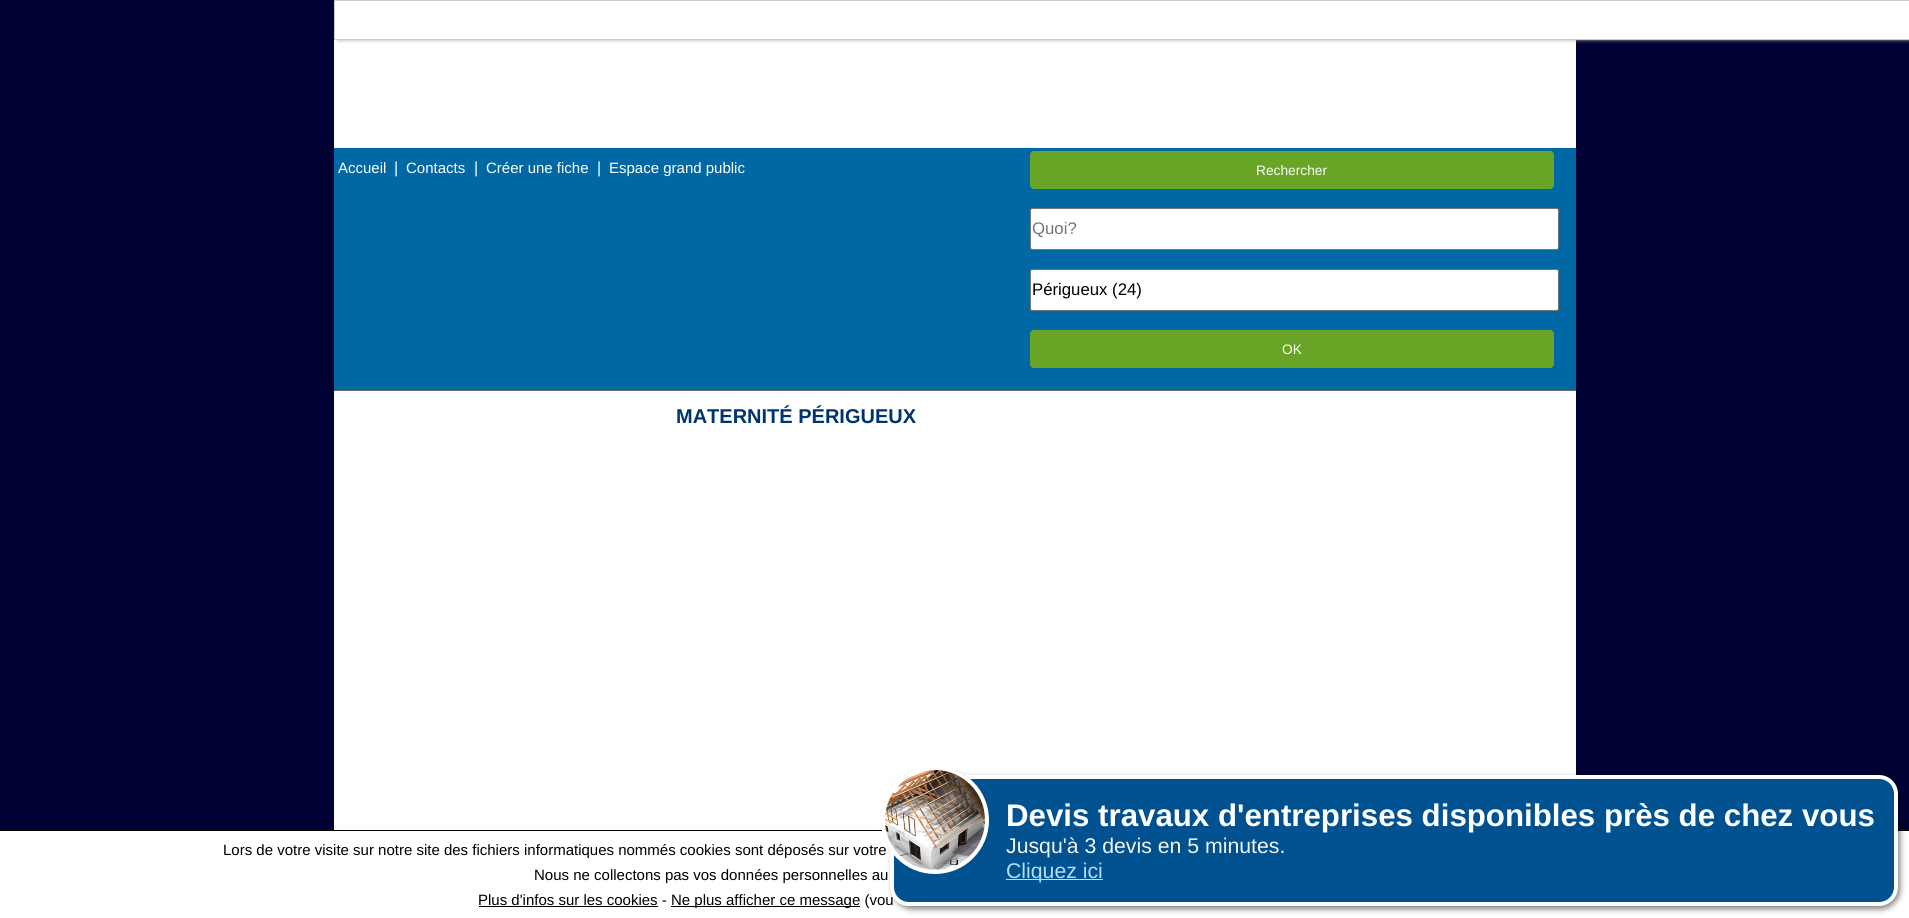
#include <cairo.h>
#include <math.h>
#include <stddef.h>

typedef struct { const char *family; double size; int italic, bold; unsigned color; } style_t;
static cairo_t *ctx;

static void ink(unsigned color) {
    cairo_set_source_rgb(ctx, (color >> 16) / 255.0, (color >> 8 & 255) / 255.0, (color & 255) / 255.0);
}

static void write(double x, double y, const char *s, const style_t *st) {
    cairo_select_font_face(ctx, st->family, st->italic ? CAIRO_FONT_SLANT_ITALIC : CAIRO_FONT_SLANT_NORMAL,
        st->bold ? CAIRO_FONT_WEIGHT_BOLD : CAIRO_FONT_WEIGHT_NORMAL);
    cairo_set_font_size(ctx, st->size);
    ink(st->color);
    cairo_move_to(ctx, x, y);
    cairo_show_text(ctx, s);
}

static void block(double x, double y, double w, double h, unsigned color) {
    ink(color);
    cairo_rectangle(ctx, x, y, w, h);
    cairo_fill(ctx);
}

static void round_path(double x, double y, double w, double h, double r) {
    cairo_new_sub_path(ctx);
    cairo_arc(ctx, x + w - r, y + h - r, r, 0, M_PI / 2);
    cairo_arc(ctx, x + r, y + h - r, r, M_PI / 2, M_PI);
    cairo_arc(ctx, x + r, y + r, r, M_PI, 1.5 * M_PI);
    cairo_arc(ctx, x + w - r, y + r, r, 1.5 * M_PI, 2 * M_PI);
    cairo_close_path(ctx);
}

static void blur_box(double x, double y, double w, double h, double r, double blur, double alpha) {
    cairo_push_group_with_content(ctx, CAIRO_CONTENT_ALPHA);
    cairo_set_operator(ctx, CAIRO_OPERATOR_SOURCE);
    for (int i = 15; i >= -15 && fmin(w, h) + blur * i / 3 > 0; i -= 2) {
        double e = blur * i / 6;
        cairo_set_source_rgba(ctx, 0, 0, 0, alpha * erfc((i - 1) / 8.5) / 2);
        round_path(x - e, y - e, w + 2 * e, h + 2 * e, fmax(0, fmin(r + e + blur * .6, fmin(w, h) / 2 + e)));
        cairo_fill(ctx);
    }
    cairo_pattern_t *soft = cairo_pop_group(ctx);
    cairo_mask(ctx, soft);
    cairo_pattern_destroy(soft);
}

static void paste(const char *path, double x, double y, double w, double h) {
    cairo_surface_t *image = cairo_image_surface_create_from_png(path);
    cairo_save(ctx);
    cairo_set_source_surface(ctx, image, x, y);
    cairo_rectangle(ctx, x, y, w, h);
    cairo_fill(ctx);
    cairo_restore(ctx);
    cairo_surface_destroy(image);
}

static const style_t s1 = {"Liberation Sans", 15, 0, 0, 0xffffff};
static const style_t s2 = {"Liberation Sans", 16, 0, 0, 0xffffff};
static const style_t s3 = {"Liberation Sans", 13.75, 0, 0, 0xffffff};
static const style_t s4 = {"Liberation Sans", 16.75, 0, 0, 0x757575};
static const style_t s5 = {"Liberation Sans", 16.75, 0, 0, 0x000000};
static const style_t s6 = {"Liberation Sans", 20, 0, 1, 0x00346f};
static const style_t s7 = {"Liberation Sans", 15, 0, 0, 0x000000};
static const style_t s8 = {"Liberation Sans", 31.25, 0, 1, 0xffffff};
static const style_t s9 = {"Liberation Sans", 21.25, 0, 0, 0xf4f4f4};
static const style_t s10 = {"Liberation Sans", 21.25, 0, 0, 0xb1ddff};

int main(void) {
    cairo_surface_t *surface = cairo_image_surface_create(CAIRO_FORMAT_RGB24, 1909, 918);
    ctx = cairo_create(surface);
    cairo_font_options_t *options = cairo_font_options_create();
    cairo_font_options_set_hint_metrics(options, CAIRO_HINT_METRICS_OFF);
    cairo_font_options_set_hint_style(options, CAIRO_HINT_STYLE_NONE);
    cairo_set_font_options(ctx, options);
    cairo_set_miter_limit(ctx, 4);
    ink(0x000033);
    cairo_paint(ctx);
    block(334, 40, 1242, 790, 0xffffff);
    ink(0xaaaaaa);
    blur_box(338, 0, 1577, 40, 0, 2, 1);
    ink(0xffffff);
    cairo_rectangle(ctx, 334.5, 0.5, 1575, 39);
    cairo_fill_preserve(ctx);
    ink(0xcccccc);
    cairo_set_line_width(ctx, 1);
    cairo_stroke(ctx);
    block(334, 148, 1242, 242, 0x0068a4);
    block(334, 390, 1242, 1, 0x666666);
    write(338, 173, "Accueil", &s1);
    write(394, 173, "|", &s2);
    write(406, 173, "Contacts", &s1);
    write(474, 173, "|", &s2);
    write(486, 173, "Créer une fiche", &s1);
    write(597, 173, "|", &s2);
    write(609, 173, "Espace grand public", &s1);
    ink(0x68a425);
    round_path(1030, 151, 524, 38, 4);
    cairo_fill(ctx);
    write(1256, 175, "Rechercher", &s3);
    round_path(1030.5, 208.5, 528, 41, 2);
    cairo_fill_preserve(ctx);
    ink(0x767676);
    cairo_stroke(ctx);
    write(1032, 234, "Quoi?", &s4);
    ink(0xffffff);
    round_path(1030.5, 269.5, 528, 41, 2);
    cairo_fill_preserve(ctx);
    ink(0x767676);
    cairo_stroke(ctx);
    write(1032, 295, "Périgueux (24)", &s5);
    ink(0x68a425);
    round_path(1030, 330, 524, 38, 4);
    cairo_fill(ctx);
    write(1282, 354, "OK", &s3);
    write(676, 423, "MATERNITÉ PÉRIGUEUX", &s6);
    block(0, 831, 1909, 87, 0xffffff);
    block(0, 830, 1909, 1, 0x000000);
    ink(0x000000);
    blur_box(893, 778, 1007, 131, 19, 3, 0.5);
    block(671, 906, 189, 1, 0x000000);
    write(671, 905, "Ne plus afficher ce message (vou", &s7);
    ink(0x005190);
    round_path(892, 777, 1004, 127, 17);
    cairo_fill_preserve(ctx);
    ink(0xffffff);
    cairo_set_line_width(ctx, 4);
    cairo_stroke(ctx);
    write(223, 855, "Lors de votre visite sur notre site des fichiers informatiques nommés cookies sont déposés sur votre", &s7);
    write(534, 880, "Nous ne collectons pas vos données personnelles au", &s7);
    paste("pic1.png", 881, 770, 108, 100);
    cairo_arc(ctx, 935, 820, 52, 0, 2 * M_PI);
    ink(0xffffff);
    cairo_stroke(ctx);
    write(1006, 826, "Devis travaux d'entreprises disponibles près de chez vous", &s8);
    write(1006, 853, "Jusqu'à 3 devis en 5 minutes.", &s9);
    block(1006, 879, 97, 1, 0xb1ddff);
    write(1006, 878, "Cliquez ici", &s10);
    write(478, 905, "Plus d'infos sur les cookies -", &s7);
    block(479, 906, 179, 1, 0x000000);
    cairo_surface_write_to_png(surface, "screenshot.png");
    cairo_font_options_destroy(options);
    cairo_destroy(ctx);
    cairo_surface_destroy(surface);
    return 0;
}
